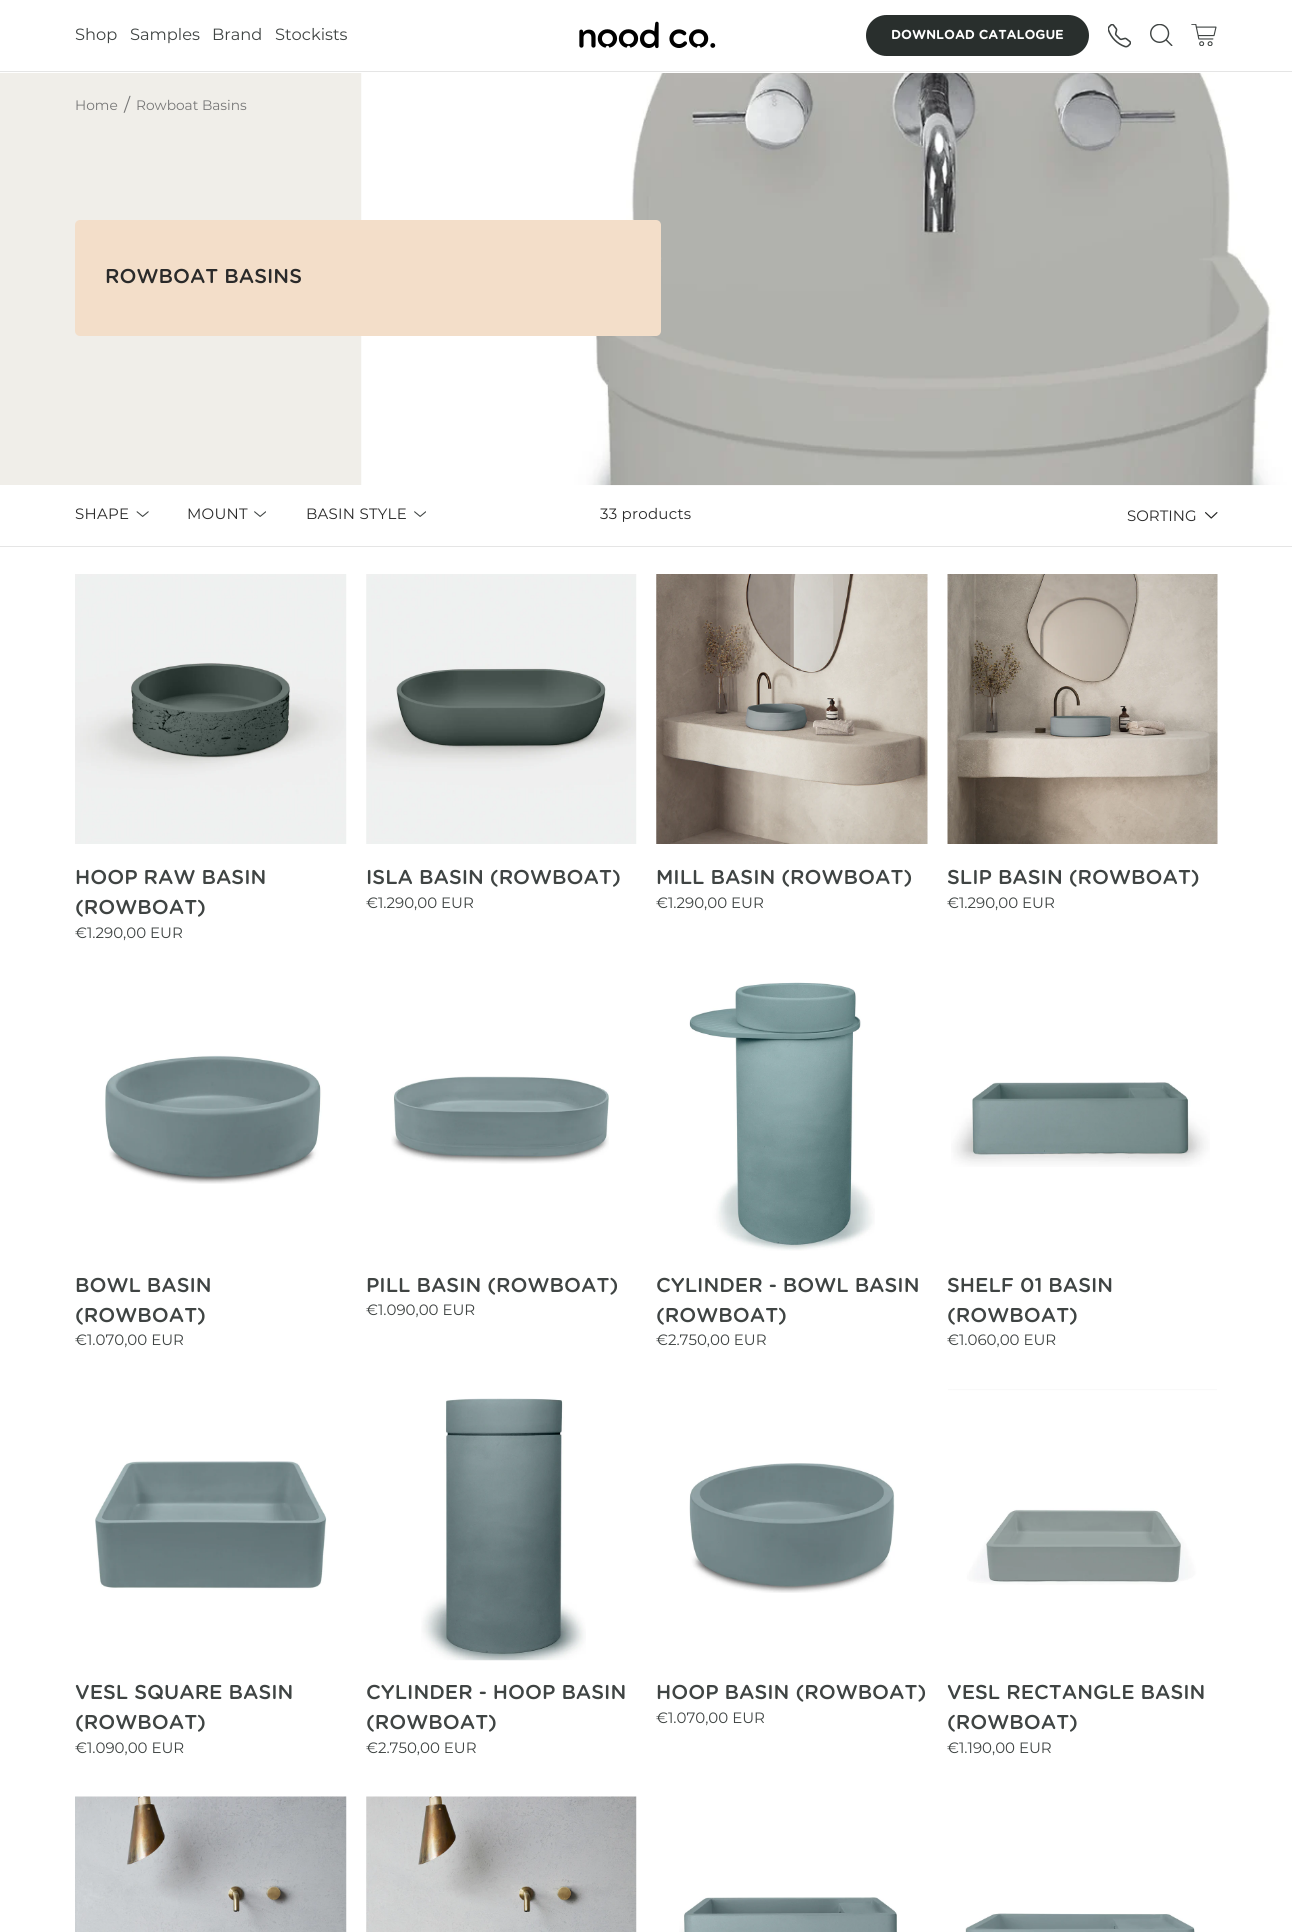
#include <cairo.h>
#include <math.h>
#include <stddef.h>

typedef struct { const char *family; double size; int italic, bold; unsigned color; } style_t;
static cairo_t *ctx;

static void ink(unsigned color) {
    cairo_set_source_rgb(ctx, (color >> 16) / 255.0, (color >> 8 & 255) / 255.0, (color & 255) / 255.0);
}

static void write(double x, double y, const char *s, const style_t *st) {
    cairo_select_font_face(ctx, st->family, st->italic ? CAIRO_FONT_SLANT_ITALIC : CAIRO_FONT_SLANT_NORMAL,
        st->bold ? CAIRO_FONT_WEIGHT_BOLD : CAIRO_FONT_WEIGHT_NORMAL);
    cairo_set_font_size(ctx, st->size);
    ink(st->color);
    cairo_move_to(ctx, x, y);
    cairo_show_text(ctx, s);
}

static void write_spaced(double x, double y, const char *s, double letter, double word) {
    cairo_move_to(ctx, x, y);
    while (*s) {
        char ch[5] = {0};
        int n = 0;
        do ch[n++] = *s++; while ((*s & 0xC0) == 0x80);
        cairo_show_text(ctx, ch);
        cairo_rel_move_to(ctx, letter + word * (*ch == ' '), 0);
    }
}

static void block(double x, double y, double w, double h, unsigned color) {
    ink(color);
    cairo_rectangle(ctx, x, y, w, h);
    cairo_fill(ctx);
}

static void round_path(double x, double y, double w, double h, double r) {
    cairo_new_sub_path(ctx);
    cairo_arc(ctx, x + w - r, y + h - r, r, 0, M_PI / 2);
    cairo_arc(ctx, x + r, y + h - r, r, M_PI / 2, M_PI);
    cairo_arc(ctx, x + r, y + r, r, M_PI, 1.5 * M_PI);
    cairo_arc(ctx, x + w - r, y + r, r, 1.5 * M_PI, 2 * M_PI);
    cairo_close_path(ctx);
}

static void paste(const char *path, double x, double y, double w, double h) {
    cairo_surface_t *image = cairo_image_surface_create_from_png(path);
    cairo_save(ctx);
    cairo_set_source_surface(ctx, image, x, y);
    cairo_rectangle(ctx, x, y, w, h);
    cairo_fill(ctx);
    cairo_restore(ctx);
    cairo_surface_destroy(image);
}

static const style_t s1 = {"Montserrat Thin", 16.25, 0, 0, 0x3f4443};
static const style_t s2 = {"Montserrat Thin", 13.75, 0, 0, 0x777777};
static const style_t s3 = {"Montserrat Thin", 18, 0, 0, 0x777777};
static const style_t s4 = {"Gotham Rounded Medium", 20, 0, 0, 0x2a2a2a};
static const style_t s5 = {"Montserrat Thin", 15, 0, 0, 0x2a2a2a};
static const style_t s6 = {"Gotham Rounded Medium", 20, 0, 0, 0x3f4443};
static const style_t s7 = {"Montserrat Thin", 15, 0, 0, 0x3f4443};

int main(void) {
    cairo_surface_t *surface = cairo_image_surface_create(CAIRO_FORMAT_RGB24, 1292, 1932);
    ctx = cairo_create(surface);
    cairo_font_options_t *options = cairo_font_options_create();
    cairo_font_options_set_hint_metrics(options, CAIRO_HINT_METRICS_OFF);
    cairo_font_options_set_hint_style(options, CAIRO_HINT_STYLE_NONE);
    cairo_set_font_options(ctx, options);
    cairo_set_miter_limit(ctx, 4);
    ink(0xffffff);
    cairo_paint(ctx);
    block(0, 71, 1292, 1, 0xe5e5e5);
    write(75, 40, "Shop", &s1);
    write(130, 40, "Samples", &s1);
    write(212, 40, "Brand", &s1);
    write(275, 40, "Stockists", &s1);
    paste("pic1.png", 579, 21, 137, 28);
    ink(0x292f2d);
    round_path(866, 15, 223, 41, 20.5);
    cairo_fill(ctx);
    cairo_select_font_face(ctx, "Gotham Rounded", CAIRO_FONT_SLANT_NORMAL, CAIRO_FONT_WEIGHT_BOLD);
    cairo_set_font_size(ctx, 12.5);
    ink(0xffffff);
    write_spaced(891, 39, "DOWNLOAD CATALOGUE", 0.25, 0);
    paste("pic2.png", 1108, 24, 23, 24);
    paste("pic3.png", 1150, 24, 23, 22);
    paste("pic4.png", 1191, 24, 26, 22);
    block(0, 73, 362, 412, 0xf0eee9);
    write(75, 110, "Home", &s2);
    write(124, 111, "/", &s3);
    write(136, 110, "Rowboat Basins", &s2);
    paste("pic5.png", 361, 73, 931, 413);
    ink(0xf3dec9);
    round_path(75, 220, 586, 116, 5);
    cairo_fill(ctx);
    write(105, 283, "ROWBOAT BASINS", &s4);
    cairo_select_font_face(ctx, "Montserrat Thin", CAIRO_FONT_SLANT_NORMAL, CAIRO_FONT_WEIGHT_NORMAL);
    cairo_set_font_size(ctx, 15);
    write_spaced(75, 519, "SHAPE", 0.25, 0);
    paste("pic6.png", 136, 511, 13, 6);
    write_spaced(187, 519, "MOUNT", 0.25, 0);
    paste("pic7.png", 254, 511, 12, 6);
    write_spaced(306, 519, "BASIN STYLE", 0.25, 0);
    paste("pic7.png", 414, 511, 12, 6);
    write_spaced(600, 519, "33 products", 0.25, 0);
    write(1127, 521, "SORTING", &s5);
    paste("pic8.png", 1205, 512, 13, 7);
    block(0, 546, 1292, 1, 0xe5e5e5);
    paste("pic9.png", 75, 574, 272, 270);
    write(75, 884, "HOOP RAW BASIN", &s6);
    write(75, 914, "(ROWBOAT)", &s6);
    write(75, 938, "€1.290,00 EUR", &s7);
    paste("pic10.png", 366, 574, 271, 270);
    write(366, 884, "ISLA BASIN (ROWBOAT)", &s6);
    write(366, 908, "€1.290,00 EUR", &s7);
    paste("pic11.png", 656, 574, 272, 270);
    write(656, 884, "MILL BASIN (ROWBOAT)", &s6);
    write(656, 908, "€1.290,00 EUR", &s7);
    paste("pic12.png", 947, 574, 271, 270);
    write(947, 884, "SLIP BASIN (ROWBOAT)", &s6);
    write(947, 908, "€1.290,00 EUR", &s7);
    paste("pic13.png", 105, 1055, 217, 129);
    write(75, 1292, "BOWL BASIN", &s6);
    write(75, 1322, "(ROWBOAT)", &s6);
    write(75, 1345, "€1.070,00 EUR", &s7);
    paste("pic14.png", 391, 1076, 218, 88);
    write(366, 1292, "PILL BASIN (ROWBOAT)", &s6);
    write(366, 1315, "€1.090,00 EUR", &s7);
    paste("pic15.png", 689, 982, 186, 269);
    write(656, 1292, "CYLINDER - BOWL BASIN", &s6);
    write(656, 1322, "(ROWBOAT)", &s6);
    write(656, 1345, "€2.750,00 EUR", &s7);
    paste("pic16.png", 951, 1082, 259, 85);
    write(947, 1292, "SHELF 01 BASIN", &s6);
    write(947, 1322, "(ROWBOAT)", &s6);
    write(947, 1345, "€1.060,00 EUR", &s7);
    paste("pic17.png", 95, 1461, 232, 129);
    write(75, 1699, "VESL SQUARE BASIN", &s6);
    write(75, 1729, "(ROWBOAT)", &s6);
    write(75, 1753, "€1.090,00 EUR", &s7);
    paste("pic18.png", 421, 1398, 165, 263);
    write(366, 1699, "CYLINDER - HOOP BASIN", &s6);
    write(366, 1729, "(ROWBOAT)", &s6);
    write(366, 1753, "€2.750,00 EUR", &s7);
    paste("pic19.png", 689, 1463, 206, 130);
    write(656, 1699, "HOOP BASIN (ROWBOAT)", &s6);
    write(656, 1723, "€1.070,00 EUR", &s7);
    paste("pic20.png", 948, 1389, 269, 196);
    write(947, 1699, "VESL RECTANGLE BASIN", &s6);
    write(947, 1729, "(ROWBOAT)", &s6);
    write(947, 1753, "€1.190,00 EUR", &s7);
    paste("pic21.png", 75, 1796, 272, 136);
    paste("pic22.png", 366, 1796, 271, 136);
    paste("pic23.png", 679, 1897, 218, 35);
    paste("pic24.png", 965, 1913, 230, 19);
    cairo_surface_write_to_png(surface, "screenshot.png");
    cairo_font_options_destroy(options);
    cairo_destroy(ctx);
    cairo_surface_destroy(surface);
    return 0;
}
